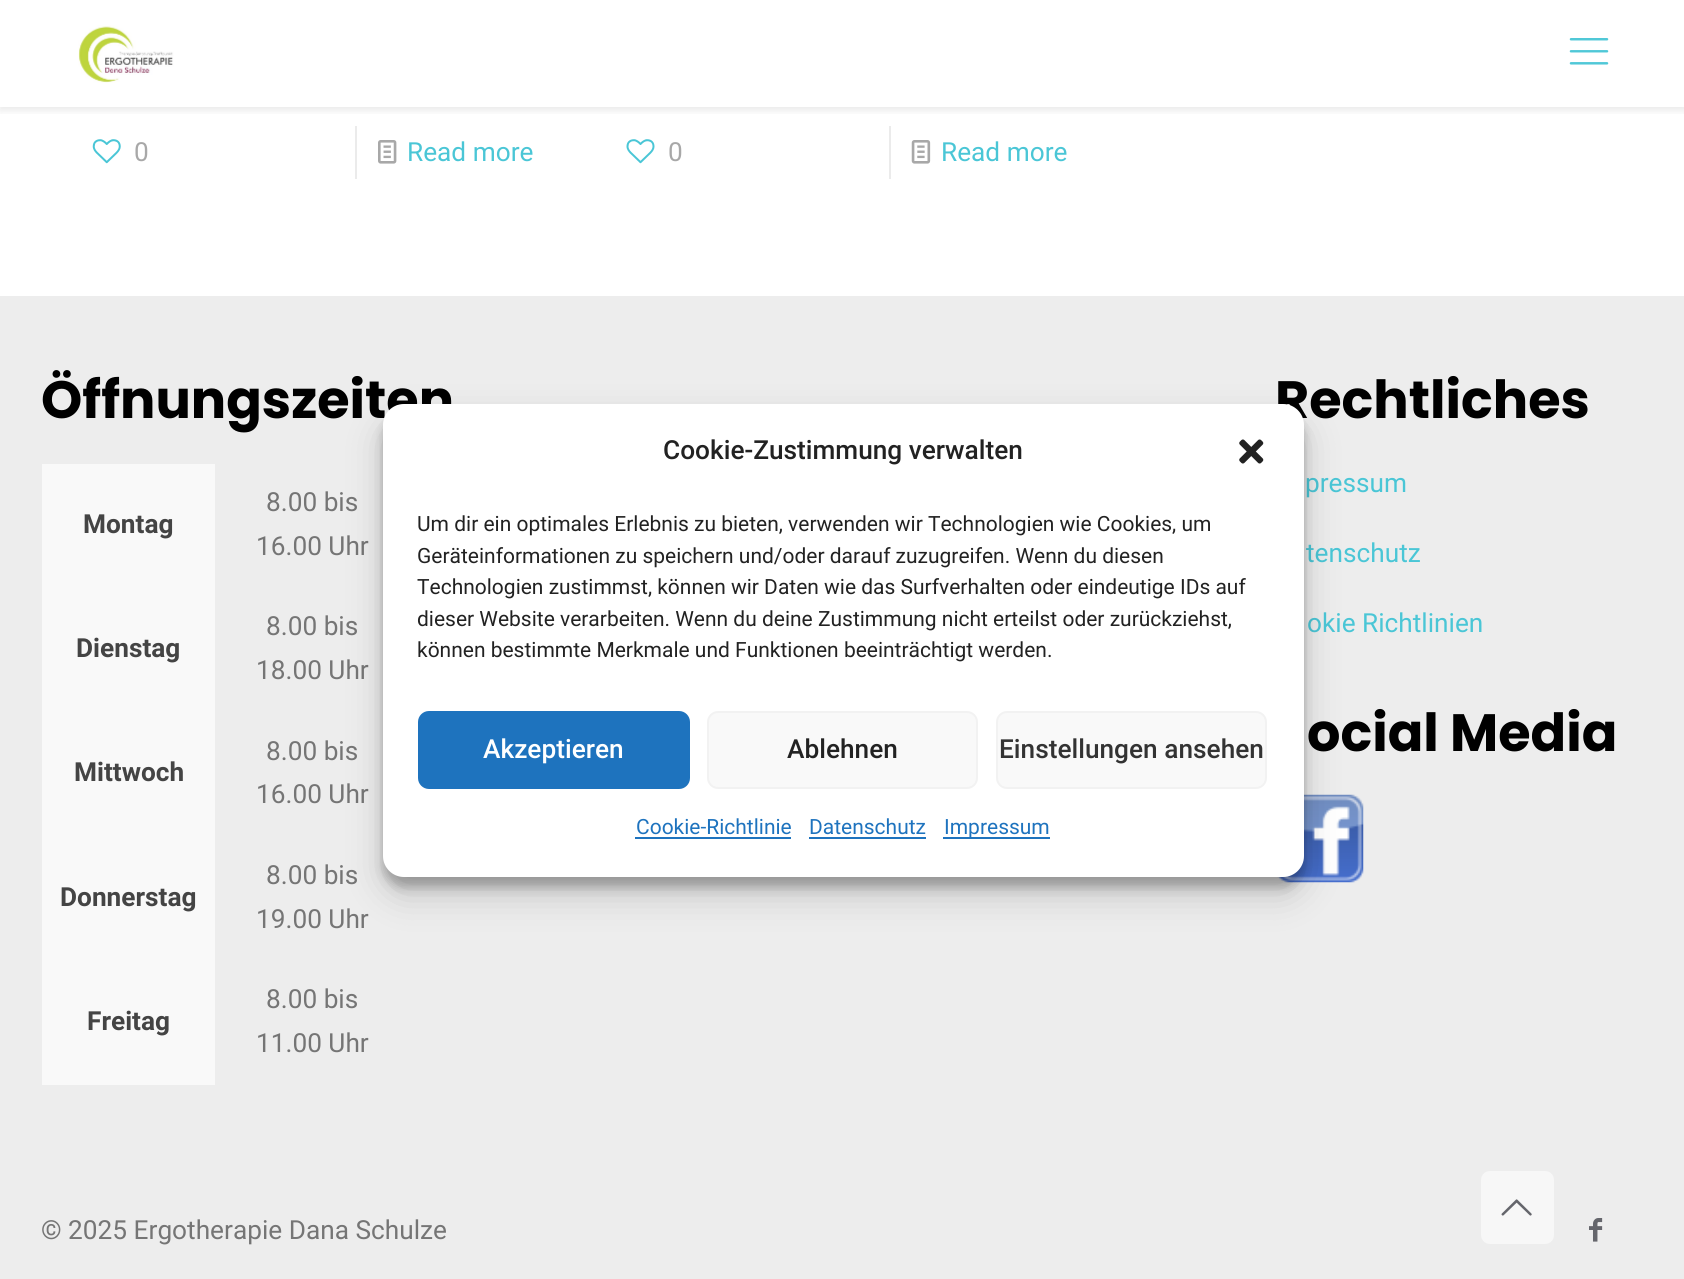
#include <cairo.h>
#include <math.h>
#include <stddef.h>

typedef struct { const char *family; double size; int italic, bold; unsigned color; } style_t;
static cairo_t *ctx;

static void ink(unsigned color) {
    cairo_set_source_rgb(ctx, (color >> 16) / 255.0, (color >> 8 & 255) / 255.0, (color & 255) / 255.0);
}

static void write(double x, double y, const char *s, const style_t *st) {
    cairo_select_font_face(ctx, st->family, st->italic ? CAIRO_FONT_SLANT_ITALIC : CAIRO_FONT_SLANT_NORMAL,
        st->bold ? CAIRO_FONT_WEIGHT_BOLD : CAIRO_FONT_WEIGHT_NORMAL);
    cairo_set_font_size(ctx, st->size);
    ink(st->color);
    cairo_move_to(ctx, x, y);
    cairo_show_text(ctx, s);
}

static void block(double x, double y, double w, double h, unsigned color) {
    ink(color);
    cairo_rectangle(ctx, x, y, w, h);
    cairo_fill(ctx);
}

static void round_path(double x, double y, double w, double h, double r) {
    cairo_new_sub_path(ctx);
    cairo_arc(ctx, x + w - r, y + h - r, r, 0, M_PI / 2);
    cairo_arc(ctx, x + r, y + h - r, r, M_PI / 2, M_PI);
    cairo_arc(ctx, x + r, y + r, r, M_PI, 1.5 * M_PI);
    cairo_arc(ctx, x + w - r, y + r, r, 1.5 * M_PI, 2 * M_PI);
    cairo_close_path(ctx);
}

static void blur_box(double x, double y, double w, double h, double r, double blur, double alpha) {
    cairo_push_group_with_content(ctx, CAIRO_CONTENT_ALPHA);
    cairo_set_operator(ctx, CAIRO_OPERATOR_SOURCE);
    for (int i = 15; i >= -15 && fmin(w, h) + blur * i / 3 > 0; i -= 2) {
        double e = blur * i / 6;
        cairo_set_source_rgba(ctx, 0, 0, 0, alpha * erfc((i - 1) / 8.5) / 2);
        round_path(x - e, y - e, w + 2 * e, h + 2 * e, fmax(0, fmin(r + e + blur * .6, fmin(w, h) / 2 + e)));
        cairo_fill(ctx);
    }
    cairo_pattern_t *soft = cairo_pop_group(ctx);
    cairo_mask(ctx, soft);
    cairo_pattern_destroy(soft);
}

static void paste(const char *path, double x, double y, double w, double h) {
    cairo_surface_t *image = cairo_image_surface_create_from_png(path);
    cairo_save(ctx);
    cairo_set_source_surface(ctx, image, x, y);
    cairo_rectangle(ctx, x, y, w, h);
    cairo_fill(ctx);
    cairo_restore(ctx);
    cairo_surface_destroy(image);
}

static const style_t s1 = {"Roboto", 26.25, 0, 0, 0xa8a8a8};
static const style_t s2 = {"Roboto", 26.25, 0, 0, 0x4ac6d6};
static const style_t s3 = {"Poppins", 52.5, 0, 1, 0x000000};
static const style_t s4 = {"Roboto", 26.25, 0, 1, 0x444444};
static const style_t s5 = {"Roboto", 26.25, 0, 0, 0x757575};
static const style_t s6 = {"Roboto Medium", 26.25, 0, 0, 0x222222};
static const style_t s7 = {"Roboto", 21, 0, 0, 0x222222};
static const style_t s8 = {"Roboto Medium", 26.25, 0, 0, 0xffffff};
static const style_t s9 = {"Roboto Medium", 26.25, 0, 0, 0x333333};
static const style_t s10 = {"Roboto", 21, 0, 0, 0x1e73be};

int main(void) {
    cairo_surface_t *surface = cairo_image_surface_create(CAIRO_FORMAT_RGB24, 1684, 1279);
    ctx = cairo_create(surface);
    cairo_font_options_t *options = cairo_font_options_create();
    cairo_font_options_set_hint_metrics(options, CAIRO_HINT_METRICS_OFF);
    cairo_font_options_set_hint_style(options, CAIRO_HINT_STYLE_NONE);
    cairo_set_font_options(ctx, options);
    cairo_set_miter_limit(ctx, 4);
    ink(0xffffff);
    cairo_paint(ctx);
    cairo_save(ctx);
    cairo_rectangle(ctx, 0, 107, 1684, 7);
    cairo_clip(ctx);
    ink(0x080808);
    blur_box(0, 4, 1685, 106, 0, 4.5, 0.1);
    cairo_restore(ctx);
    cairo_set_source_rgba(ctx, 1, 1, 1, 0.97);
    cairo_rectangle(ctx, 1, 106, 1683, 1);
    cairo_fill(ctx);
    paste("pic1.png", 78, 25, 99, 58);
    paste("pic2.png", 1569, 38, 40, 27);
    paste("pic3.png", 92, 139, 29, 25);
    write(134, 161, "0", &s1);
    block(355, 126, 2, 53, 0xebebeb);
    paste("pic4.png", 378, 140, 19, 24);
    write(407, 161, "Read more", &s2);
    paste("pic5.png", 626, 139, 29, 25);
    write(668, 161, "0", &s1);
    block(889, 126, 2, 53, 0xebebeb);
    paste("pic6.png", 911, 140, 20, 24);
    write(941, 161, "Read more", &s2);
    block(0, 296, 1684, 983, 0xededed);
    write(41, 418, "Öffnungszeiten", &s3);
    block(42, 464, 173, 621, 0xf9f9f9);
    write(83, 533, "Montag", &s4);
    write(266, 511, "8.00 bis", &s5);
    write(256, 555, "16.00 Uhr", &s5);
    write(76, 657, "Dienstag", &s4);
    write(266, 635, "8.00 bis", &s5);
    write(256, 679, "18.00 Uhr", &s5);
    write(74, 781, "Mittwoch", &s4);
    write(266, 760, "8.00 bis", &s5);
    write(256, 803, "16.00 Uhr", &s5);
    write(60, 906, "Donnerstag", &s4);
    write(266, 884, "8.00 bis", &s5);
    write(256, 928, "19.00 Uhr", &s5);
    write(87, 1030, "Freitag", &s4);
    write(266, 1008, "8.00 bis", &s5);
    write(256, 1052, "11.00 Uhr", &s5);
    write(1275, 418, "Rechtliches", &s3);
    write(1305, 492, "pressum", &s2);
    write(1306, 562, "tenschutz", &s2);
    write(1307, 632, "okie Richtlinien", &s2);
    write(1307, 751, "ocial Media", &s3);
    paste("pic7.png", 1277, 794, 87, 89);
    write(41, 1239, "© 2025 Ergotherapie Dana Schulze", &s5);
    paste("pic8.png", 1589, 1218, 14, 24);
    ink(0x000000);
    blur_box(383, 415, 921, 472, 21, 5, 0.23);
    blur_box(383, 422, 921, 472, 21, 17.5, 0.19);
    ink(0xffffff);
    round_path(383, 404, 921, 473, 21);
    cairo_fill(ctx);
    write(663, 459, "Cookie-Zustimmung verwalten", &s6);
    paste("pic9.png", 1239, 439, 25, 25);
    write(417, 531, "Um dir ein optimales Erlebnis zu bieten, verwenden wir Technologien wie Cookies, um", &s7);
    write(417, 563, "Geräteinformationen zu speichern und/oder darauf zuzugreifen. Wenn du diesen", &s7);
    write(417, 594, "Technologien zustimmst, können wir Daten wie das Surfverhalten oder eindeutige IDs auf", &s7);
    write(417, 626, "dieser Website verarbeiten. Wenn du deine Zustimmung nicht erteilst oder zurückziehst,", &s7);
    write(417, 657, "können bestimmte Merkmale und Funktionen beeinträchtigt werden.", &s7);
    ink(0x1e73be);
    round_path(419, 712, 270, 76, 10);
    cairo_fill_preserve(ctx);
    cairo_stroke(ctx);
    write(483, 758, "Akzeptieren", &s8);
    ink(0xf9f9f9);
    round_path(708, 712, 269, 76, 10);
    cairo_fill_preserve(ctx);
    ink(0xf2f2f2);
    cairo_stroke(ctx);
    write(787, 758, "Ablehnen", &s6);
    ink(0xf9f9f9);
    round_path(997, 712, 269, 76, 10);
    cairo_fill_preserve(ctx);
    ink(0xf2f2f2);
    cairo_stroke(ctx);
    write(999, 758, "Einstellungen ansehen", &s9);
    write(636, 834, "Cookie-Richtlinie", &s10);
    block(635, 837, 156, 2, 0x1e73be);
    write(809, 834, "Datenschutz", &s10);
    block(809, 837, 117, 2, 0x1e73be);
    block(943, 837, 107, 2, 0x1e73be);
    write(944, 834, "Impressum", &s10);
    ink(0xf7f7f7);
    round_path(1481, 1171, 73, 73, 9);
    cairo_fill(ctx);
    paste("pic10.png", 1501, 1199, 31, 17);
    cairo_surface_write_to_png(surface, "screenshot.png");
    cairo_font_options_destroy(options);
    cairo_destroy(ctx);
    cairo_surface_destroy(surface);
    return 0;
}
